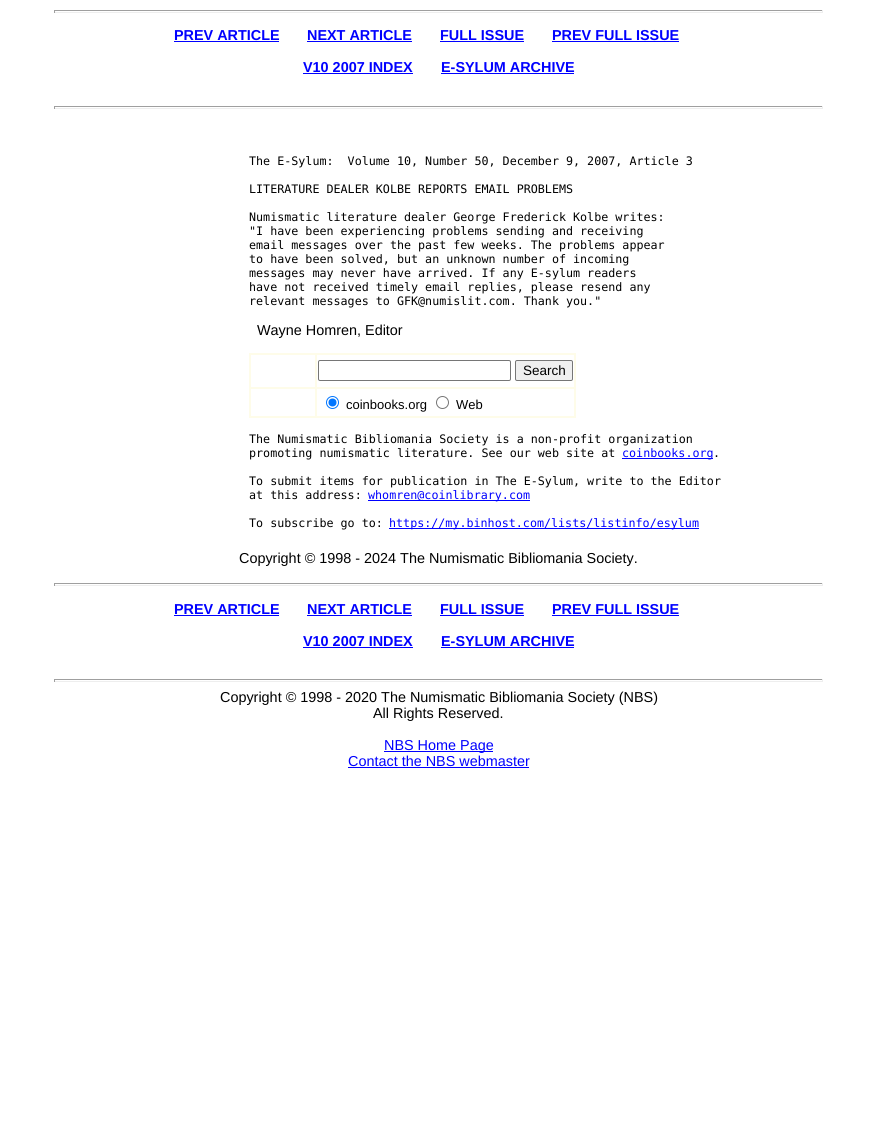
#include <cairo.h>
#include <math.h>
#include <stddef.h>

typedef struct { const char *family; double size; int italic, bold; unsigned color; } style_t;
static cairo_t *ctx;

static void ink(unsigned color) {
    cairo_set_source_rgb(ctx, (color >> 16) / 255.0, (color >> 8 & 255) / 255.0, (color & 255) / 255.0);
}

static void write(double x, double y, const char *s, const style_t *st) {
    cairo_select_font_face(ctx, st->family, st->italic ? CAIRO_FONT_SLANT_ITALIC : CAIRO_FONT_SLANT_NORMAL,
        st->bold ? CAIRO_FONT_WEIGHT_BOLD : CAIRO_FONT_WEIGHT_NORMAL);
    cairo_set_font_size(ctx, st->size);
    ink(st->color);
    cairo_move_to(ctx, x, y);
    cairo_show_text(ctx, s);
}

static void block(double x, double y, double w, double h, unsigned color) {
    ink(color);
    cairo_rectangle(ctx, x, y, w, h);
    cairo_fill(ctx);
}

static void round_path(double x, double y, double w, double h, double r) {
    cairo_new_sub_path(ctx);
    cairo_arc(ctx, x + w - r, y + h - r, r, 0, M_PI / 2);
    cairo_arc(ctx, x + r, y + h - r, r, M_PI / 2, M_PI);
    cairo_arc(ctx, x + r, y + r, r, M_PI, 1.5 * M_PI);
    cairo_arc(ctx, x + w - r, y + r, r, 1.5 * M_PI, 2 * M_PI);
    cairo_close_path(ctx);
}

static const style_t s1 = {"Liberation Sans", 14.4, 0, 1, 0x0000ff};
static const style_t s2 = {"DejaVu Sans Mono", 11.7, 0, 0, 0x000000};
static const style_t s3 = {"Liberation Sans", 14.4, 0, 0, 0x000000};
static const style_t s4 = {"Liberation Sans", 13.5, 0, 0, 0x000000};
static const style_t s5 = {"Liberation Sans", 13, 0, 0, 0x000000};
static const style_t s6 = {"DejaVu Sans Mono", 11.7, 0, 0, 0x0000ff};
static const style_t s7 = {"Liberation Sans", 14.4, 0, 0, 0x0000ff};

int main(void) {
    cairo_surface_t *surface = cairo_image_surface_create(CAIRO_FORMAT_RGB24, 877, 1147);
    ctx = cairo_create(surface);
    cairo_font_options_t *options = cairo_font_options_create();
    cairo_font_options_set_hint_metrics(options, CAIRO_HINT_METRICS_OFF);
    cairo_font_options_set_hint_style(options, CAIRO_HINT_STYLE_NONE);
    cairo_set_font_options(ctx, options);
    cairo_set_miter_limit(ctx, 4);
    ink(0xffffff);
    cairo_paint(ctx);
    block(54, 10, 769, 1, 0x9f9f9f);
    block(822, 10, 1, 3, 0xeeeeee);
    block(54, 12, 769, 1, 0xeeeeee);
    block(54, 10, 1, 3, 0x9f9f9f);
    write(174, 40, "PREV ARTICLE", &s1);
    block(174, 41, 105, 1, 0x0000ff);
    write(307, 40, "NEXT ARTICLE", &s1);
    block(307, 41, 105, 1, 0x0000ff);
    write(440, 40, "FULL ISSUE", &s1);
    block(440, 41, 84, 1, 0x0000ff);
    write(552, 40, "PREV FULL ISSUE", &s1);
    block(552, 41, 127, 1, 0x0000ff);
    write(303, 72, "V10 2007 INDEX", &s1);
    block(303, 73, 110, 1, 0x0000ff);
    write(441, 72, "E-SYLUM ARCHIVE", &s1);
    block(441, 73, 133, 1, 0x0000ff);
    block(54, 106, 769, 1, 0x9f9f9f);
    block(822, 106, 1, 3, 0xeeeeee);
    block(54, 108, 769, 1, 0xeeeeee);
    block(54, 106, 1, 3, 0x9f9f9f);
    write(249, 165, "The E-Sylum:  Volume 10, Number 50, December 9, 2007, Article 3", &s2);
    write(249, 193, "LITERATURE DEALER KOLBE REPORTS EMAIL PROBLEMS", &s2);
    write(249, 221, "Numismatic literature dealer George Frederick Kolbe writes:", &s2);
    write(249, 235, "\"I have been experiencing problems sending and receiving", &s2);
    write(249, 249, "email messages over the past few weeks. The problems appear", &s2);
    write(249, 263, "to have been solved, but an unknown number of incoming", &s2);
    write(249, 277, "messages may never have arrived. If any E-sylum readers", &s2);
    write(249, 291, "have not received timely email replies, please resend any", &s2);
    write(249, 305, "relevant messages to GFK@numislit.com. Thank you.\"", &s2);
    write(257, 335, "Wayne Homren, Editor", &s3);
    block(249, 353, 327, 65, 0xfefce9);
    block(251, 355, 64, 32, 0xffffff);
    block(317, 355, 257, 32, 0xffffff);
    round_path(318.5, 360.5, 192, 20, 1.5);
    ink(0x767676);
    cairo_set_line_width(ctx, 1);
    cairo_stroke(ctx);
    ink(0xefefef);
    round_path(515.5, 360.5, 57, 20, 1.5);
    cairo_fill_preserve(ctx);
    ink(0x767676);
    cairo_stroke(ctx);
    write(523, 375, "Search", &s4);
    block(251, 389, 64, 27, 0xffffff);
    block(317, 389, 257, 27, 0xffffff);
    cairo_new_path(ctx);
    cairo_arc(ctx, 332.5, 402.5, 6, 0, 2 * M_PI);
    ink(0x0075ff);
    cairo_stroke(ctx);
    cairo_arc(ctx, 332.5, 402.5, 4, 0, 2 * M_PI);
    cairo_fill(ctx);
    write(346, 409, "coinbooks.org", &s5);
    cairo_new_path(ctx);
    cairo_arc(ctx, 442.5, 402.5, 6, 0, 2 * M_PI);
    ink(0x767676);
    cairo_stroke(ctx);
    write(456, 409, "Web", &s5);
    write(249, 443, "The Numismatic Bibliomania Society is a non-profit organization", &s2);
    write(249, 457, "promoting numismatic literature. See our web site at", &s2);
    block(622, 458, 91, 1, 0x0000ff);
    write(622, 457, "coinbooks.org", &s6);
    write(713, 457, ".", &s2);
    write(249, 485, "To submit items for publication in The E-Sylum, write to the Editor", &s2);
    write(249, 499, "at this address:", &s2);
    block(368, 500, 162, 1, 0x0000ff);
    write(368, 499, "whomren@coinlibrary.com", &s6);
    write(249, 527, "To subscribe go to:", &s2);
    block(389, 528, 310, 1, 0x0000ff);
    write(389, 527, "https://my.binhost.com/lists/listinfo/esylum", &s6);
    write(239, 563, "Copyright © 1998 - 2024 The Numismatic Bibliomania Society.", &s3);
    block(54, 583, 769, 1, 0x9f9f9f);
    block(822, 583, 1, 3, 0xeeeeee);
    block(54, 585, 769, 1, 0xeeeeee);
    block(54, 583, 1, 3, 0x9f9f9f);
    write(174, 614, "PREV ARTICLE", &s1);
    block(174, 615, 105, 1, 0x0000ff);
    write(307, 614, "NEXT ARTICLE", &s1);
    block(307, 615, 105, 1, 0x0000ff);
    write(440, 614, "FULL ISSUE", &s1);
    block(440, 615, 84, 1, 0x0000ff);
    write(552, 614, "PREV FULL ISSUE", &s1);
    block(552, 615, 127, 1, 0x0000ff);
    write(303, 646, "V10 2007 INDEX", &s1);
    block(303, 647, 110, 1, 0x0000ff);
    write(441, 646, "E-SYLUM ARCHIVE", &s1);
    block(441, 647, 133, 1, 0x0000ff);
    block(54, 679, 769, 1, 0x9f9f9f);
    block(822, 679, 1, 3, 0xeeeeee);
    block(54, 681, 769, 1, 0xeeeeee);
    block(54, 679, 1, 3, 0x9f9f9f);
    write(220, 702, "Copyright © 1998 - 2020 The Numismatic Bibliomania Society (NBS)", &s3);
    write(373, 718, "All Rights Reserved.", &s3);
    block(384, 751, 109, 1, 0x0000ff);
    write(384, 750, "NBS Home Page", &s7);
    write(348, 766, "Contact the NBS webmaster", &s7);
    block(348, 767, 181, 1, 0x0000ff);
    cairo_surface_write_to_png(surface, "screenshot.png");
    cairo_font_options_destroy(options);
    cairo_destroy(ctx);
    cairo_surface_destroy(surface);
    return 0;
}
